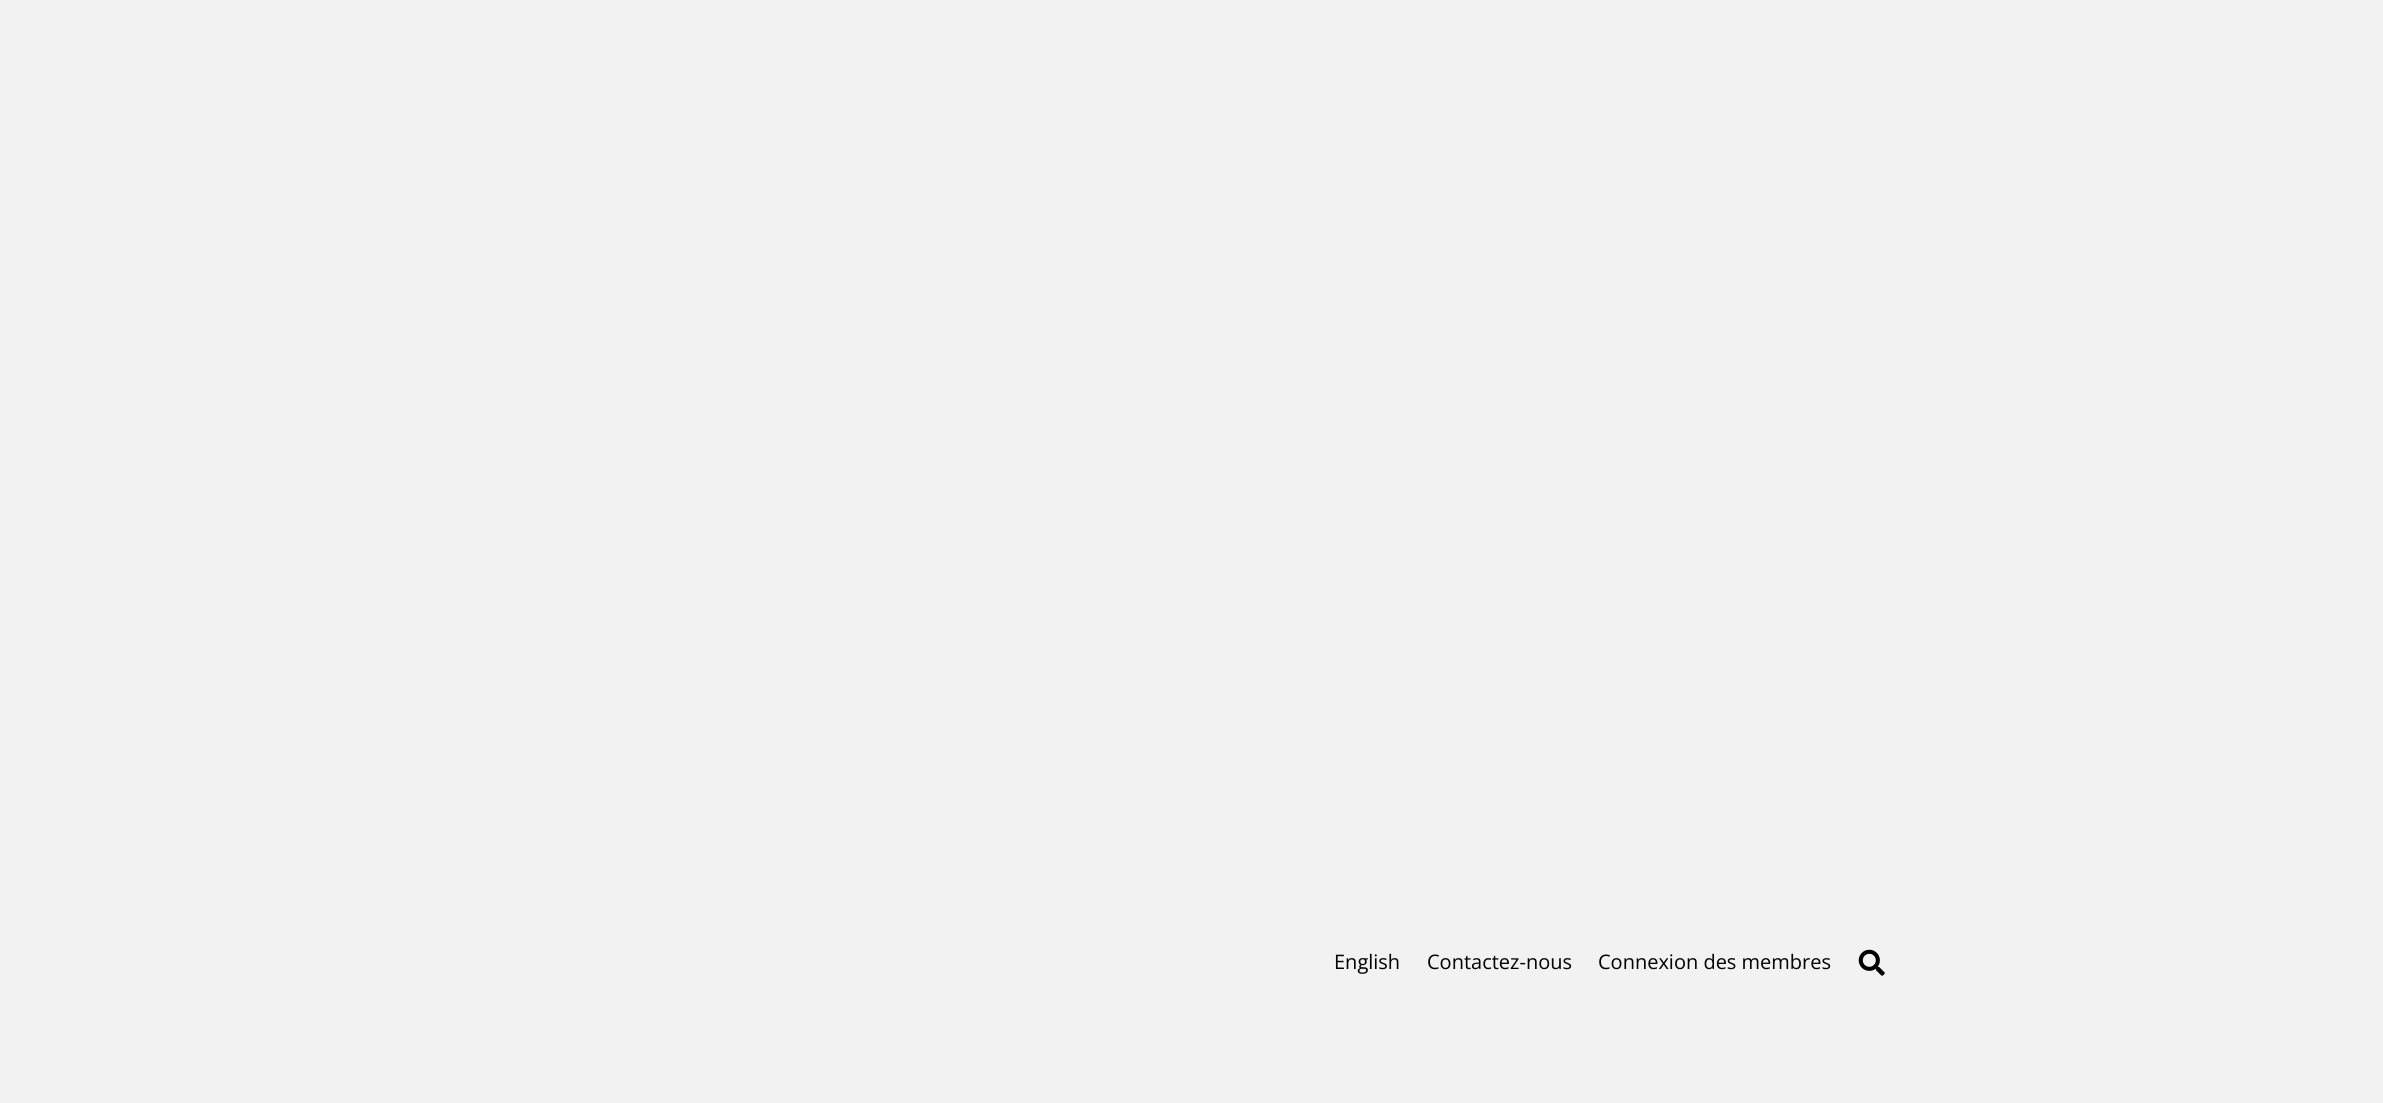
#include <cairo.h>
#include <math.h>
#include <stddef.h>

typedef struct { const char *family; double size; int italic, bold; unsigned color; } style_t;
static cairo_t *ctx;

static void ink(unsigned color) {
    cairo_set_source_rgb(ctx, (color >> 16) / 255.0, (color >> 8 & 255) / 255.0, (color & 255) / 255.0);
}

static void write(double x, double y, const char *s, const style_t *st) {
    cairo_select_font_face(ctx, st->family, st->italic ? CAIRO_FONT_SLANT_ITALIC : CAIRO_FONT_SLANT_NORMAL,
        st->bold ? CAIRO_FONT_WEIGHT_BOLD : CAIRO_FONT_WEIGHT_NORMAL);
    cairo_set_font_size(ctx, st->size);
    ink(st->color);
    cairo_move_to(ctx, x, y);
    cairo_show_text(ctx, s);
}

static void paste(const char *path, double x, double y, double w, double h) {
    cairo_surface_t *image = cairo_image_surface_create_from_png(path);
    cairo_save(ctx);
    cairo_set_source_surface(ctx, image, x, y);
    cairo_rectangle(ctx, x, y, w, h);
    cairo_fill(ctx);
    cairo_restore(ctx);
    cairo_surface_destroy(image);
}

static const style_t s1 = {"Open Sans", 20, 0, 0, 0x000000};

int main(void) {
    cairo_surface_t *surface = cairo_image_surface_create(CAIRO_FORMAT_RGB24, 2383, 1103);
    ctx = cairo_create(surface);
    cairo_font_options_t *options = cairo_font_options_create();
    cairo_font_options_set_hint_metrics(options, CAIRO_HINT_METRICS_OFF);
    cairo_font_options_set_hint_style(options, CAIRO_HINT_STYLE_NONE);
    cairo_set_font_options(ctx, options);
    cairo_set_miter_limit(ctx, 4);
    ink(0xf2f2f2);
    cairo_paint(ctx);
    write(1334, 969, "English", &s1);
    write(1427, 969, "Contactez-nous", &s1);
    write(1598, 969, "Connexion des membres", &s1);
    paste("pic1.png", 1858, 949, 27, 27);
    cairo_surface_write_to_png(surface, "screenshot.png");
    cairo_font_options_destroy(options);
    cairo_destroy(ctx);
    cairo_surface_destroy(surface);
    return 0;
}
